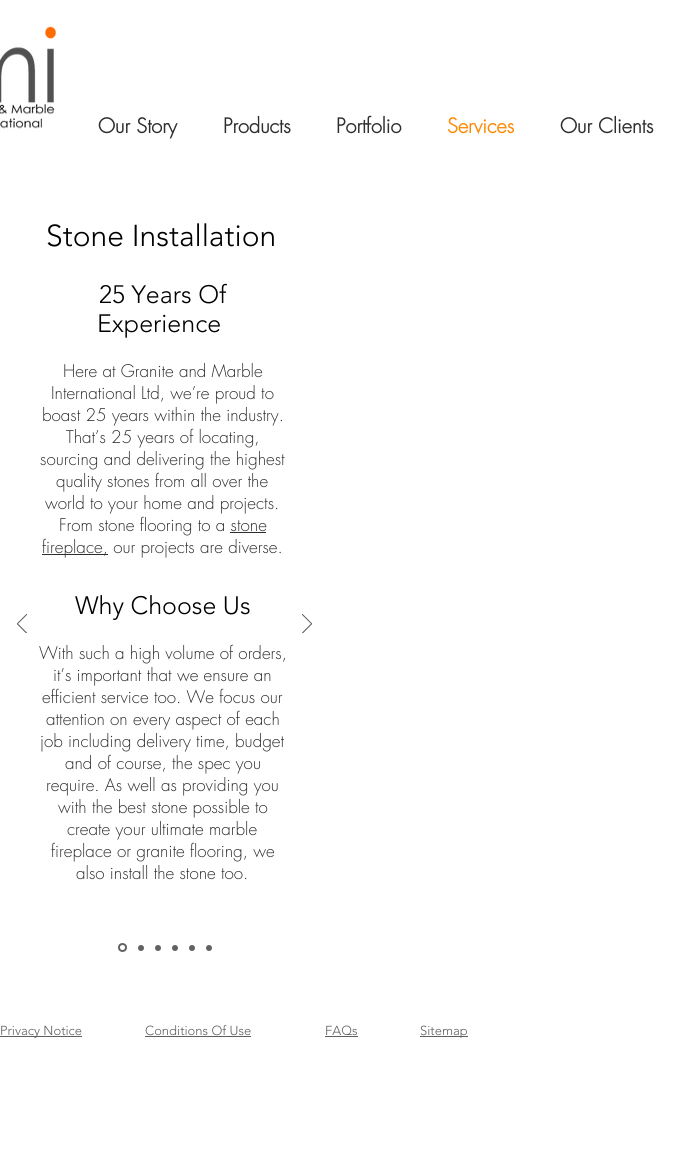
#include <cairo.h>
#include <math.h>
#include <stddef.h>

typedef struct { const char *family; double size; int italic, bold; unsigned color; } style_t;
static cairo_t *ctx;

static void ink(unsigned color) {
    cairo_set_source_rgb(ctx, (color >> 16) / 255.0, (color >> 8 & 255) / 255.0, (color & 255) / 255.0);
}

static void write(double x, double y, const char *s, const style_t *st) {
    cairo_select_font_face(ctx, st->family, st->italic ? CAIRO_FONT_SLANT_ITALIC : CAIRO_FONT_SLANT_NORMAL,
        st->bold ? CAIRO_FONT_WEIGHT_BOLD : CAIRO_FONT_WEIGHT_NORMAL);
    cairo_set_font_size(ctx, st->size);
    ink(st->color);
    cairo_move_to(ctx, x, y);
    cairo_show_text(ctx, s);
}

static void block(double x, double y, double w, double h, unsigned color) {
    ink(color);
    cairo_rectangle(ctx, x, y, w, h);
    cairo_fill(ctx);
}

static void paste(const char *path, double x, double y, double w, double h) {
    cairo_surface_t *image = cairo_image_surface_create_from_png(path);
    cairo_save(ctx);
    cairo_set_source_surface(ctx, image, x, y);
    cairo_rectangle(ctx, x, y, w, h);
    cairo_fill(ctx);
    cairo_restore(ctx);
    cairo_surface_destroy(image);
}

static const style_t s1 = {"futura", 20, 0, 1, 0x2f2e2e};
static const style_t s2 = {"futura", 20, 0, 1, 0xff8800};
static const style_t s3 = {"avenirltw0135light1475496 Light", 30, 0, 0, 0x000000};
static const style_t s4 = {"avenirltw0135light1475496 Light", 25, 0, 0, 0x000000};
static const style_t s5 = {"futura Light", 17, 0, 0, 0x2f2e2e};
static const style_t s6 = {"avenirltw0135light1475496 Light", 13, 0, 0, 0x605e5e};

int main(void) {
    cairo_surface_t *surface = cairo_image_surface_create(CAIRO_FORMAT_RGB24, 675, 1150);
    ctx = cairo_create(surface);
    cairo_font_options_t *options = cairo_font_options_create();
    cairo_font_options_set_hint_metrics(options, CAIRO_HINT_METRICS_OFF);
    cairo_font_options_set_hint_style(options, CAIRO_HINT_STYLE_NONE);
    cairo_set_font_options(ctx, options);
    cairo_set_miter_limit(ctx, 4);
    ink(0xffffff);
    cairo_paint(ctx);
    paste("pic1.png", 0, 26, 56, 103);
    write(98, 133, "Our Story", &s1);
    write(223, 133, "Products", &s1);
    write(336, 133, "Portfolio", &s1);
    write(447, 133, "Services", &s2);
    write(560, 133, "Our Clients", &s1);
    write(46, 246, "Stone Installation", &s3);
    paste("pic2.png", 17, 614, 10, 19);
    write(99, 303, "25 Years Of", &s4);
    write(97, 332, "Experience", &s4);
    write(63, 377, "Here at Granite and Marble", &s5);
    write(51, 399, "International Ltd, we’re proud to", &s5);
    write(42, 421, "boast 25 years within the industry.", &s5);
    write(66, 443, "That’s 25 years of locating,", &s5);
    write(40, 465, "sourcing and delivering the highest", &s5);
    write(56, 487, "quality stones from all over the", &s5);
    write(45, 509, "world to your home and projects.", &s5);
    write(59, 531, "From stone flooring to a stone", &s5);
    block(230, 532, 36, 1, 0x2f2e2e);
    block(42, 554, 66, 1, 0x2f2e2e);
    write(42, 553, "fireplace, our projects are diverse.", &s5);
    write(75, 614, "Why Choose Us", &s4);
    write(39, 659, "With such a high volume of orders,", &s5);
    write(53, 681, "it’s important that we ensure an", &s5);
    write(42, 703, "efficient service too. We focus our", &s5);
    write(46, 725, "attention on every aspect of each", &s5);
    write(40, 747, "job including delivery time, budget", &s5);
    write(65, 769, "and of course, the spec you", &s5);
    write(46, 791, "require. As well as providing you", &s5);
    write(58, 813, "with the best stone possible to", &s5);
    write(67, 835, "create your ultimate marble", &s5);
    write(51, 857, "fireplace or granite flooring, we", &s5);
    write(76, 879, "also install the stone too.", &s5);
    paste("pic3.png", 302, 614, 10, 19);
    cairo_arc(ctx, 122.5, 947.5, 3.5, 0, 2 * M_PI);
    ink(0x626262);
    cairo_stroke(ctx);
    cairo_arc(ctx, 141, 948, 3, 0, 2 * M_PI);
    cairo_fill(ctx);
    cairo_arc(ctx, 158, 948, 3, 0, 2 * M_PI);
    cairo_fill(ctx);
    cairo_arc(ctx, 175, 948, 3, 0, 2 * M_PI);
    cairo_fill(ctx);
    cairo_arc(ctx, 192, 948, 3, 0, 2 * M_PI);
    cairo_fill(ctx);
    cairo_arc(ctx, 209, 948, 3, 0, 2 * M_PI);
    cairo_fill(ctx);
    block(0, 1036, 82, 1, 0x605e5e);
    write(0, 1035, "Privacy Notice", &s6);
    write(145, 1035, "Conditions Of Use", &s6);
    block(145, 1036, 106, 1, 0x605e5e);
    write(325, 1035, "FAQs", &s6);
    block(325, 1036, 33, 1, 0x605e5e);
    block(420, 1036, 48, 1, 0x605e5e);
    write(420, 1035, "Sitemap", &s6);
    cairo_surface_write_to_png(surface, "screenshot.png");
    cairo_font_options_destroy(options);
    cairo_destroy(ctx);
    cairo_surface_destroy(surface);
    return 0;
}
